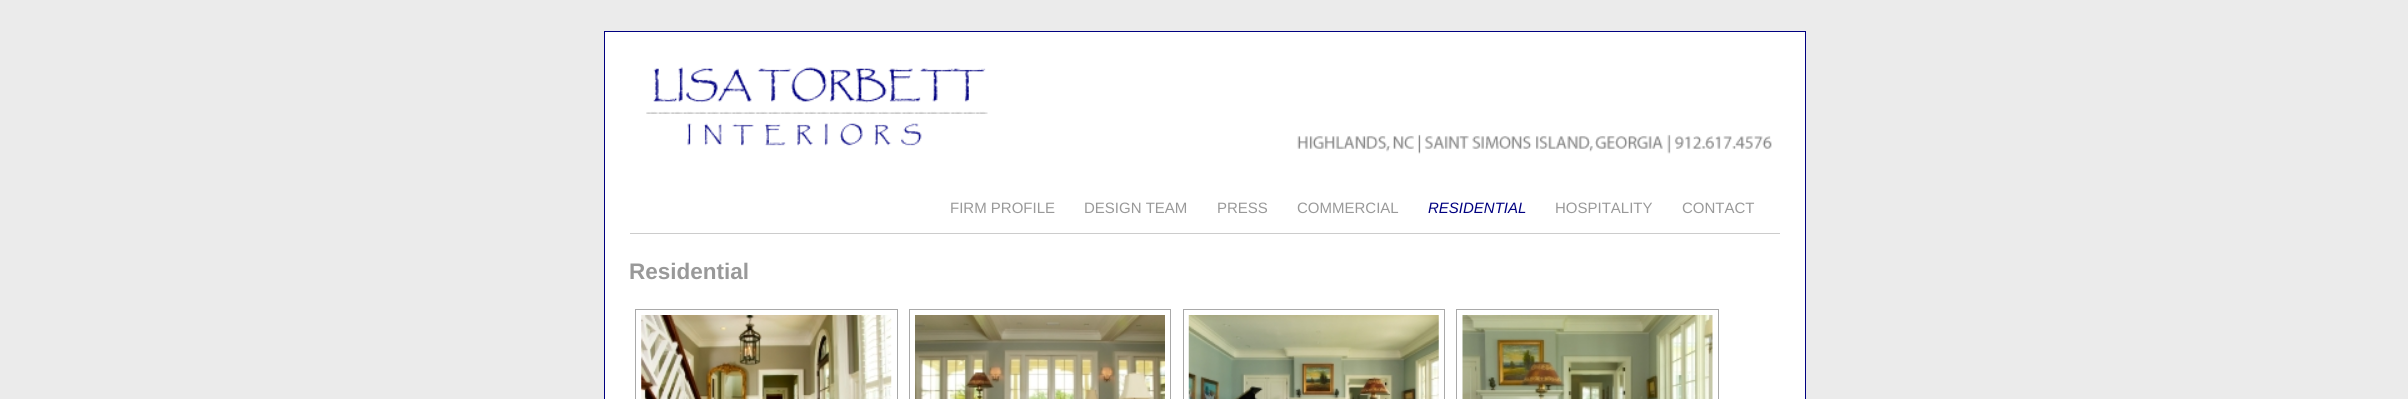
#include <cairo.h>
#include <math.h>
#include <stddef.h>

typedef struct { const char *family; double size; int italic, bold; unsigned color; } style_t;
static cairo_t *ctx;

static void ink(unsigned color) {
    cairo_set_source_rgb(ctx, (color >> 16) / 255.0, (color >> 8 & 255) / 255.0, (color & 255) / 255.0);
}

static void write(double x, double y, const char *s, const style_t *st) {
    cairo_select_font_face(ctx, st->family, st->italic ? CAIRO_FONT_SLANT_ITALIC : CAIRO_FONT_SLANT_NORMAL,
        st->bold ? CAIRO_FONT_WEIGHT_BOLD : CAIRO_FONT_WEIGHT_NORMAL);
    cairo_set_font_size(ctx, st->size);
    ink(st->color);
    cairo_move_to(ctx, x, y);
    cairo_show_text(ctx, s);
}

static void block(double x, double y, double w, double h, unsigned color) {
    ink(color);
    cairo_rectangle(ctx, x, y, w, h);
    cairo_fill(ctx);
}

static void paste(const char *path, double x, double y, double w, double h) {
    cairo_surface_t *image = cairo_image_surface_create_from_png(path);
    cairo_save(ctx);
    cairo_set_source_surface(ctx, image, x, y);
    cairo_rectangle(ctx, x, y, w, h);
    cairo_fill(ctx);
    cairo_restore(ctx);
    cairo_surface_destroy(image);
}

static const style_t s1 = {"Liberation Sans", 15, 0, 0, 0x999999};
static const style_t s2 = {"Liberation Sans", 15, 1, 0, 0x000080};
static const style_t s3 = {"Liberation Sans", 22.5, 0, 1, 0x999999};

int main(void) {
    cairo_surface_t *surface = cairo_image_surface_create(CAIRO_FORMAT_RGB24, 2408, 399);
    ctx = cairo_create(surface);
    cairo_font_options_t *options = cairo_font_options_create();
    cairo_font_options_set_hint_metrics(options, CAIRO_HINT_METRICS_OFF);
    cairo_font_options_set_hint_style(options, CAIRO_HINT_STYLE_NONE);
    cairo_set_font_options(ctx, options);
    cairo_set_miter_limit(ctx, 4);
    ink(0xebebeb);
    cairo_paint(ctx);
    ink(0xffffff);
    cairo_rectangle(ctx, 604.5, 31.5, 1201, 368);
    cairo_fill_preserve(ctx);
    ink(0x000080);
    cairo_set_line_width(ctx, 1);
    cairo_stroke(ctx);
    paste("pic1.png", 646, 67, 342, 79);
    paste("pic2.png", 1297, 134, 475, 20);
    block(630, 233, 1150, 1, 0xcccccc);
    write(950, 213, "FIRM PROFILE", &s1);
    write(1084, 213, "DESIGN TEAM", &s1);
    write(1217, 213, "PRESS", &s1);
    write(1297, 213, "COMMERCIAL", &s1);
    write(1428, 213, "RESIDENTIAL", &s2);
    write(1555, 213, "HOSPITALITY", &s1);
    write(1682, 213, "CONTACT", &s1);
    write(629, 279, "Residential", &s3);
    cairo_rectangle(ctx, 635.5, 309.5, 262, 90);
    ink(0xa9a9a9);
    cairo_stroke(ctx);
    paste("pic3.png", 641, 315, 251, 84);
    cairo_rectangle(ctx, 909.5, 309.5, 261, 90);
    cairo_stroke(ctx);
    paste("pic4.png", 915, 315, 250, 84);
    cairo_rectangle(ctx, 1183.5, 309.5, 261, 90);
    cairo_stroke(ctx);
    paste("pic5.png", 1188, 315, 251, 84);
    cairo_rectangle(ctx, 1456.5, 309.5, 262, 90);
    cairo_stroke(ctx);
    paste("pic6.png", 1462, 315, 251, 84);
    cairo_surface_write_to_png(surface, "screenshot.png");
    cairo_font_options_destroy(options);
    cairo_destroy(ctx);
    cairo_surface_destroy(surface);
    return 0;
}
